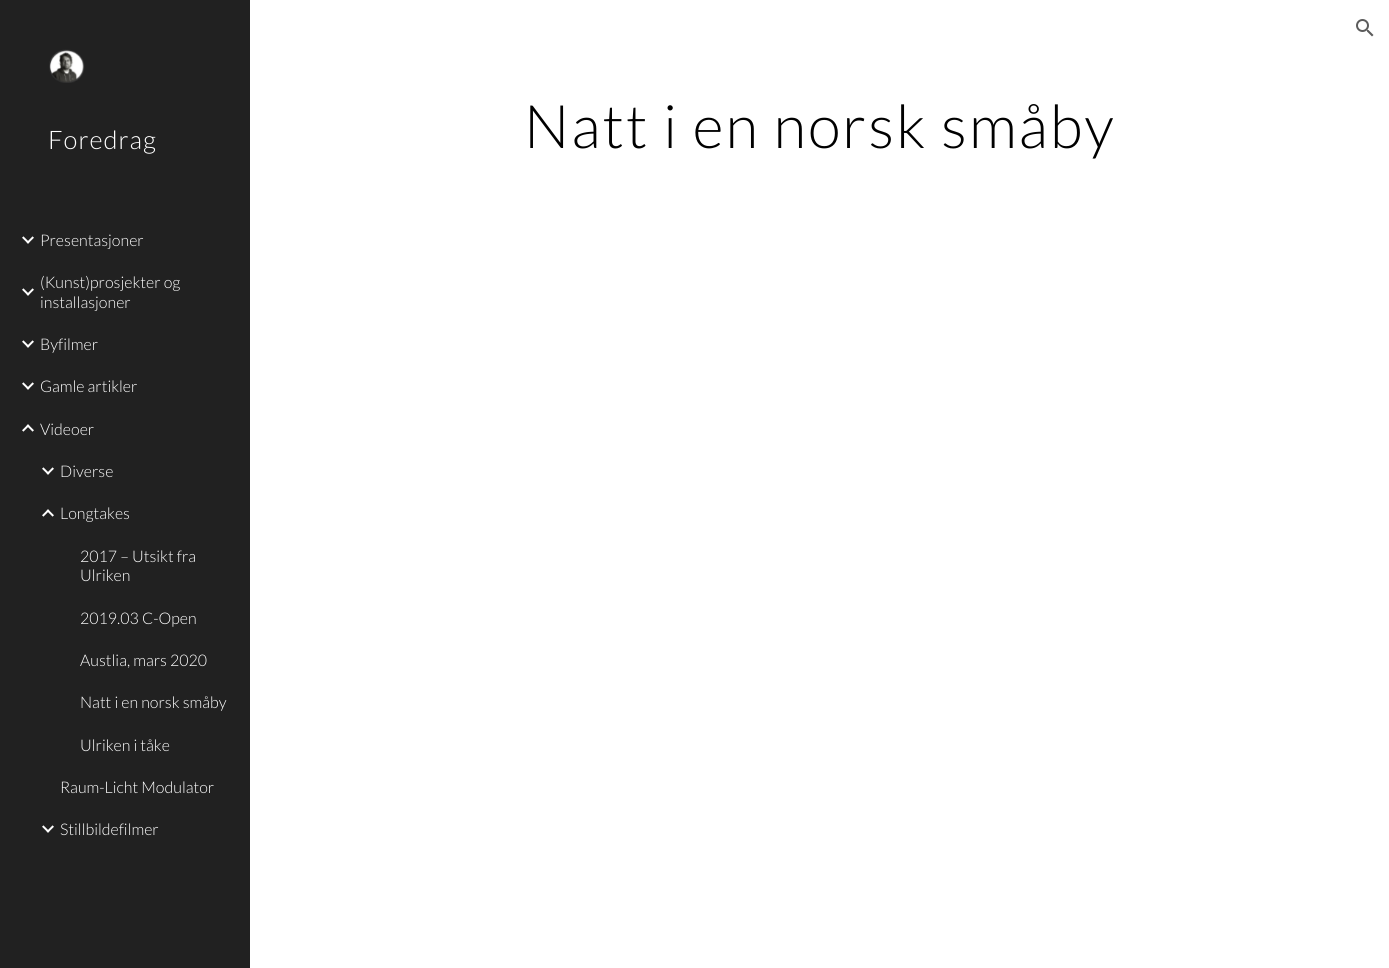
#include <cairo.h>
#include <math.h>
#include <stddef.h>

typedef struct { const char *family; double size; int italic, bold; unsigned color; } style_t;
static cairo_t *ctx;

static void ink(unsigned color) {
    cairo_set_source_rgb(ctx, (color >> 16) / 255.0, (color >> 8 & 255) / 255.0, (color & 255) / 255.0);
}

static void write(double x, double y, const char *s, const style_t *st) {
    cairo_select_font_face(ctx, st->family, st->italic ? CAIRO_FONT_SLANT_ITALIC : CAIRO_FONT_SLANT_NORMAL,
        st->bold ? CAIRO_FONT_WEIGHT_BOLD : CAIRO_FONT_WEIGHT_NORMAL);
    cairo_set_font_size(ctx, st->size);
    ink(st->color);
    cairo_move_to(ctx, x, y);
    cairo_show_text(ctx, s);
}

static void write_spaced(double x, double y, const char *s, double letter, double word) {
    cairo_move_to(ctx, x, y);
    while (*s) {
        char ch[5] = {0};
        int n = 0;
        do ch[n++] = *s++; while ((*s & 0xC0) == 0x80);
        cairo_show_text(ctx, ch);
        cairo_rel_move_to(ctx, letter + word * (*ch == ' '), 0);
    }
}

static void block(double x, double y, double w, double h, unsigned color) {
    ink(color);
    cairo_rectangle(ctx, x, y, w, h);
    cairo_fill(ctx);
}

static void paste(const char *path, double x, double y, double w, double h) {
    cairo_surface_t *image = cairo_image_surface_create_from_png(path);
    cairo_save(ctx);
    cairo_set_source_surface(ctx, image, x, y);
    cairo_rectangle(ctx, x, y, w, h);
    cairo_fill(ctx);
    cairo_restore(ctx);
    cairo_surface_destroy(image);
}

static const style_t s1 = {"Lato Light", 16, 0, 0, 0xffffff};

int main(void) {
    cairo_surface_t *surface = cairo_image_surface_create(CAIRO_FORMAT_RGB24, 1389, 968);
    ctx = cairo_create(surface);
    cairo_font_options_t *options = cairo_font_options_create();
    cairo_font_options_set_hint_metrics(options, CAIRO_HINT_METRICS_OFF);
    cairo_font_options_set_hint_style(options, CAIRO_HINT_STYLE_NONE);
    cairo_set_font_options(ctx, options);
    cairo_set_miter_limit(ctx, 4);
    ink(0xffffff);
    cairo_paint(ctx);
    paste("pic1.png", 1356, 19, 18, 18);
    block(0, 0, 250, 968, 0x212121);
    paste("pic2.png", 49, 49, 36, 34);
    cairo_select_font_face(ctx, "Lato Light", CAIRO_FONT_SLANT_NORMAL, CAIRO_FONT_WEIGHT_NORMAL);
    cairo_set_font_size(ctx, 25.5);
    ink(0xffffff);
    write_spaced(48, 149, "Foredrag", 1, 0);
    paste("pic3.png", 22, 236, 12, 8);
    write(40, 246, "Presentasjoner", &s1);
    paste("pic3.png", 22, 288, 12, 8);
    write(40, 288, "(Kunst)prosjekter og", &s1);
    write(40, 308, "installasjoner", &s1);
    paste("pic3.png", 22, 340, 12, 8);
    write(40, 350, "Byfilmer", &s1);
    paste("pic3.png", 22, 382, 12, 8);
    write(40, 392, "Gamle artikler", &s1);
    paste("pic4.png", 22, 424, 12, 8);
    write(40, 435, "Videoer", &s1);
    paste("pic3.png", 42, 467, 12, 8);
    write(60, 477, "Diverse", &s1);
    paste("pic4.png", 42, 509, 12, 8);
    write(60, 519, "Longtakes", &s1);
    write(80, 562, "2017 – Utsikt fra", &s1);
    write(80, 581, "Ulriken", &s1);
    write(80, 624, "2019.03 C-Open", &s1);
    write(80, 666, "Austlia, mars 2020", &s1);
    write(80, 708, "Natt i en norsk småby", &s1);
    write(80, 751, "Ulriken i tåke", &s1);
    write(60, 793, "Raum-Licht Modulator", &s1);
    paste("pic3.png", 42, 825, 12, 8);
    write(60, 835, "Stillbildefilmer", &s1);
    cairo_set_font_size(ctx, 60);
    ink(0x000000);
    write_spaced(524, 148, "Natt i en norsk småby", 2, 0);
    cairo_surface_write_to_png(surface, "screenshot.png");
    cairo_font_options_destroy(options);
    cairo_destroy(ctx);
    cairo_surface_destroy(surface);
    return 0;
}
